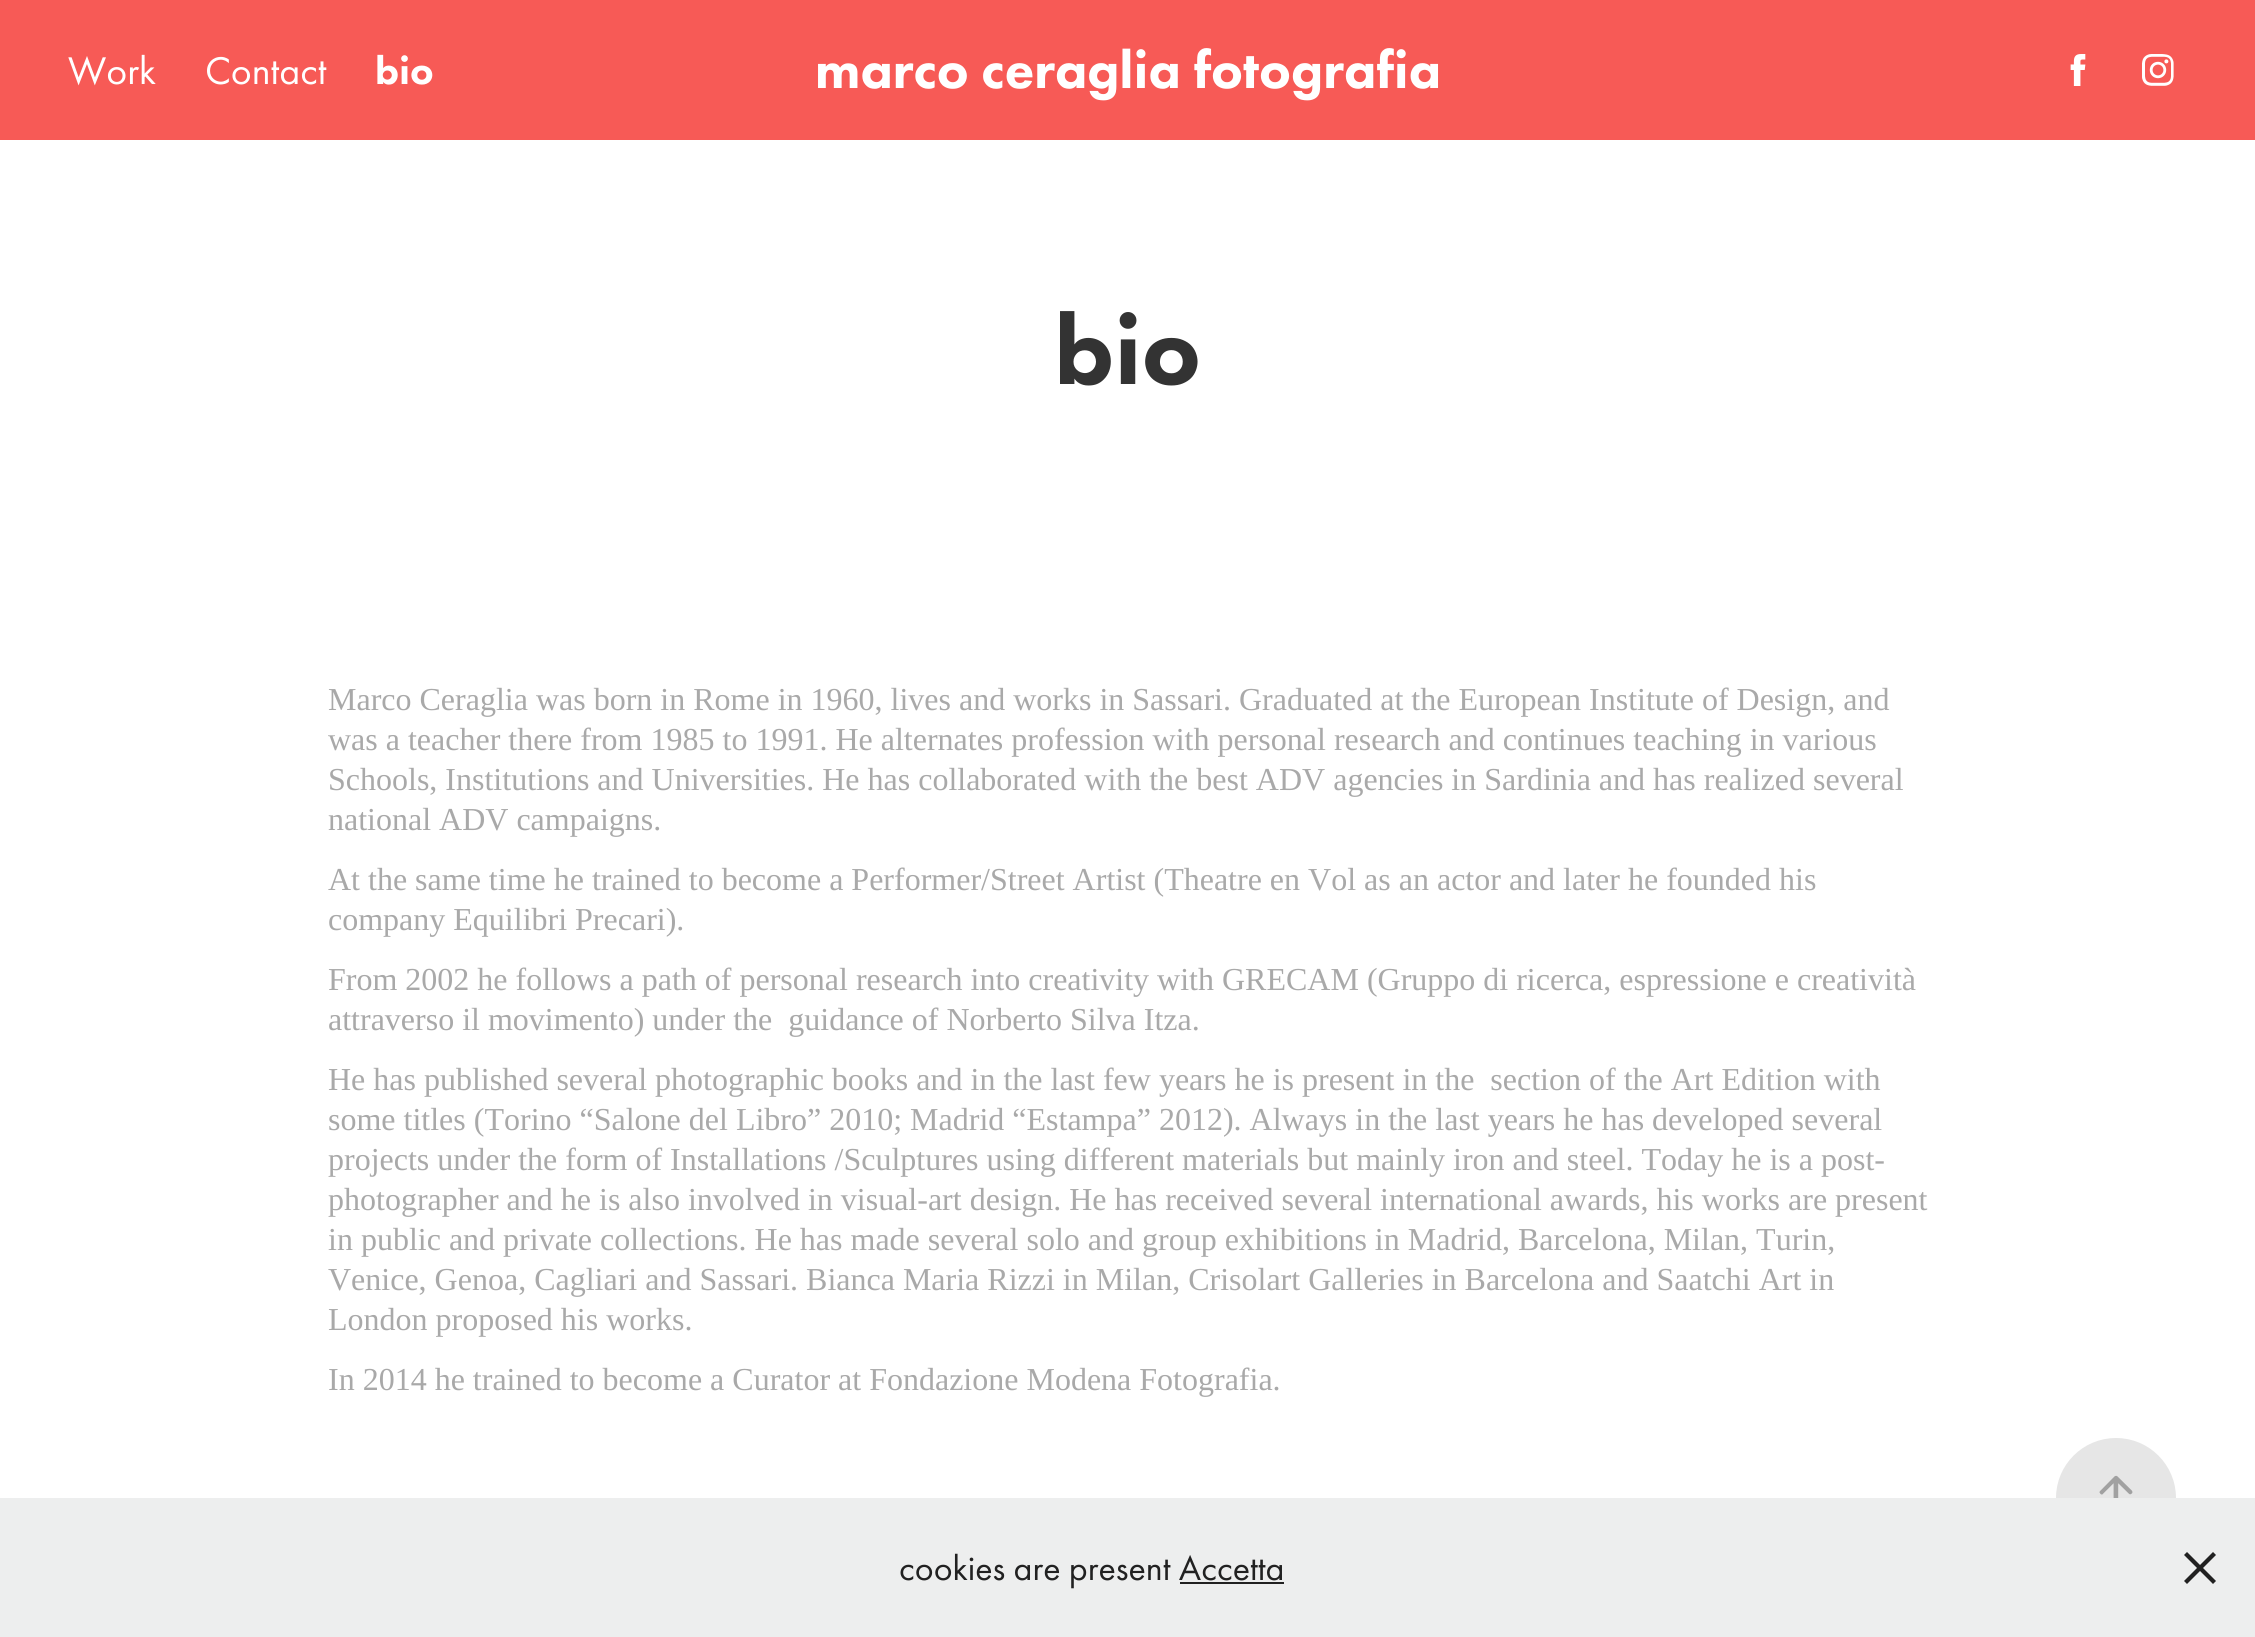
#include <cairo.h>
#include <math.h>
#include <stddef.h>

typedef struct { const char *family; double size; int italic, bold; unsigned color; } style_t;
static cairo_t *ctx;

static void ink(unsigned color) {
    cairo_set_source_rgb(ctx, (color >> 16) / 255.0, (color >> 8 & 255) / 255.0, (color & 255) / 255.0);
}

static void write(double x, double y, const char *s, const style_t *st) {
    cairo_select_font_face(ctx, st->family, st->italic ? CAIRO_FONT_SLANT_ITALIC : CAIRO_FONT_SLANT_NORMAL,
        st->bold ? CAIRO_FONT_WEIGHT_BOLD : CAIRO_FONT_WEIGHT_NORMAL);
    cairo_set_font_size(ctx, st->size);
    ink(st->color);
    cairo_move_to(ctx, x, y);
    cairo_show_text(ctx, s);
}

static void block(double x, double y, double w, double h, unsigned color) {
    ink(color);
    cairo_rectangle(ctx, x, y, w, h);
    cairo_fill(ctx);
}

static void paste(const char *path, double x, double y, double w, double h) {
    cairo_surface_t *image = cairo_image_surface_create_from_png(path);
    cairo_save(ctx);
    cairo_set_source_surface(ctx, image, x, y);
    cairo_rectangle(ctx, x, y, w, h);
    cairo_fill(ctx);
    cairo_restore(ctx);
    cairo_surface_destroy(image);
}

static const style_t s1 = {"Futura PT", 40, 0, 0, 0xffffff};
static const style_t s2 = {"Futura PT Black", 40, 0, 0, 0xffffff};
static const style_t s3 = {"Futura PT Black", 54, 0, 0, 0xffffff};
static const style_t s4 = {"Futura PT Black", 100, 0, 0, 0x333333};
static const style_t s5 = {"Liberation Serif", 32, 0, 0, 0xa9a9a9};
static const style_t s6 = {"Futura PT", 36, 0, 0, 0x212121};

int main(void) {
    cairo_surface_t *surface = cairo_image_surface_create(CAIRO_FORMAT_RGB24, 2255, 1637);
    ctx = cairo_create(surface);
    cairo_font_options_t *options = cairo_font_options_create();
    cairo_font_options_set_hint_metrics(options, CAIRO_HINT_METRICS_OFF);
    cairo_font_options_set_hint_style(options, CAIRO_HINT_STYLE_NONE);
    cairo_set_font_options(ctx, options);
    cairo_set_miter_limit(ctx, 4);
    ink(0xffffff);
    cairo_paint(ctx);
    block(0, 0, 2255, 140, 0xf75a56);
    write(68, 84, "Work", &s1);
    write(205, 84, "Contact", &s1);
    write(375, 84, "bio", &s2);
    write(815, 88, "marco ceraglia fotografia", &s3);
    paste("pic1.png", 2070, 54, 16, 32);
    paste("pic2.png", 2142, 54, 32, 32);
    write(1054, 384, "bio", &s4);
    write(328, 710, "Marco Ceraglia was born in Rome in 1960, lives and works in Sassari. Graduated at the European Institute of Design, and", &s5);
    write(328, 750, "was a teacher there from 1985 to 1991. He alternates profession with personal research and continues teaching in various", &s5);
    write(328, 790, "Schools, Institutions and Universities. He has collaborated with the best ADV agencies in Sardinia and has realized several", &s5);
    write(328, 830, "national ADV campaigns.", &s5);
    write(328, 890, "At the same time he trained to become a Performer/Street Artist (Theatre en Vol as an actor and later he founded his", &s5);
    write(328, 930, "company Equilibri Precari).", &s5);
    write(328, 990, "From 2002 he follows a path of personal research into creativity with GRECAM (Gruppo di ricerca, espressione e creatività", &s5);
    write(328, 1030, "attraverso il movimento) under the  guidance of Norberto Silva Itza.", &s5);
    write(328, 1090, "He has published several photographic books and in the last few years he is present in the  section of the Art Edition with", &s5);
    write(328, 1130, "some titles (Torino “Salone del Libro” 2010; Madrid “Estampa” 2012). Always in the last years he has developed several", &s5);
    write(328, 1170, "projects under the form of Installations /Sculptures using different materials but mainly iron and steel. Today he is a post-", &s5);
    write(328, 1210, "photographer and he is also involved in visual-art design. He has received several international awards, his works are present", &s5);
    write(328, 1250, "in public and private collections. He has made several solo and group exhibitions in Madrid, Barcelona, Milan, Turin,", &s5);
    write(328, 1290, "Venice, Genoa, Cagliari and Sassari. Bianca Maria Rizzi in Milan, Crisolart Galleries in Barcelona and Saatchi Art in", &s5);
    write(328, 1330, "London proposed his works.", &s5);
    write(328, 1390, "In 2014 he trained to become a Curator at Fondazione Modena Fotografia.", &s5);
    ink(0xe6e6e6);
    cairo_new_path(ctx);
    cairo_arc(ctx, 2116, 1498, 60, 0, 2 * M_PI);
    cairo_fill(ctx);
    paste("pic3.png", 2099, 1475, 34, 23);
    block(0, 1498, 2255, 139, 0xedeeee);
    write(899, 1580, "cookies are present Accetta", &s6);
    block(1180, 1582, 104, 2, 0x212121);
    cairo_new_path(ctx);
    cairo_move_to(ctx, 2184, 1555);
    cairo_line_to(ctx, 2187, 1552);
    cairo_line_to(ctx, 2216, 1581);
    cairo_line_to(ctx, 2213, 1584);
    cairo_close_path(ctx);
    cairo_fill(ctx);
    cairo_new_path(ctx);
    cairo_move_to(ctx, 2187, 1584);
    cairo_line_to(ctx, 2184, 1581);
    cairo_line_to(ctx, 2213, 1552);
    cairo_line_to(ctx, 2216, 1555);
    cairo_close_path(ctx);
    cairo_fill(ctx);
    cairo_surface_write_to_png(surface, "screenshot.png");
    cairo_font_options_destroy(options);
    cairo_destroy(ctx);
    cairo_surface_destroy(surface);
    return 0;
}
